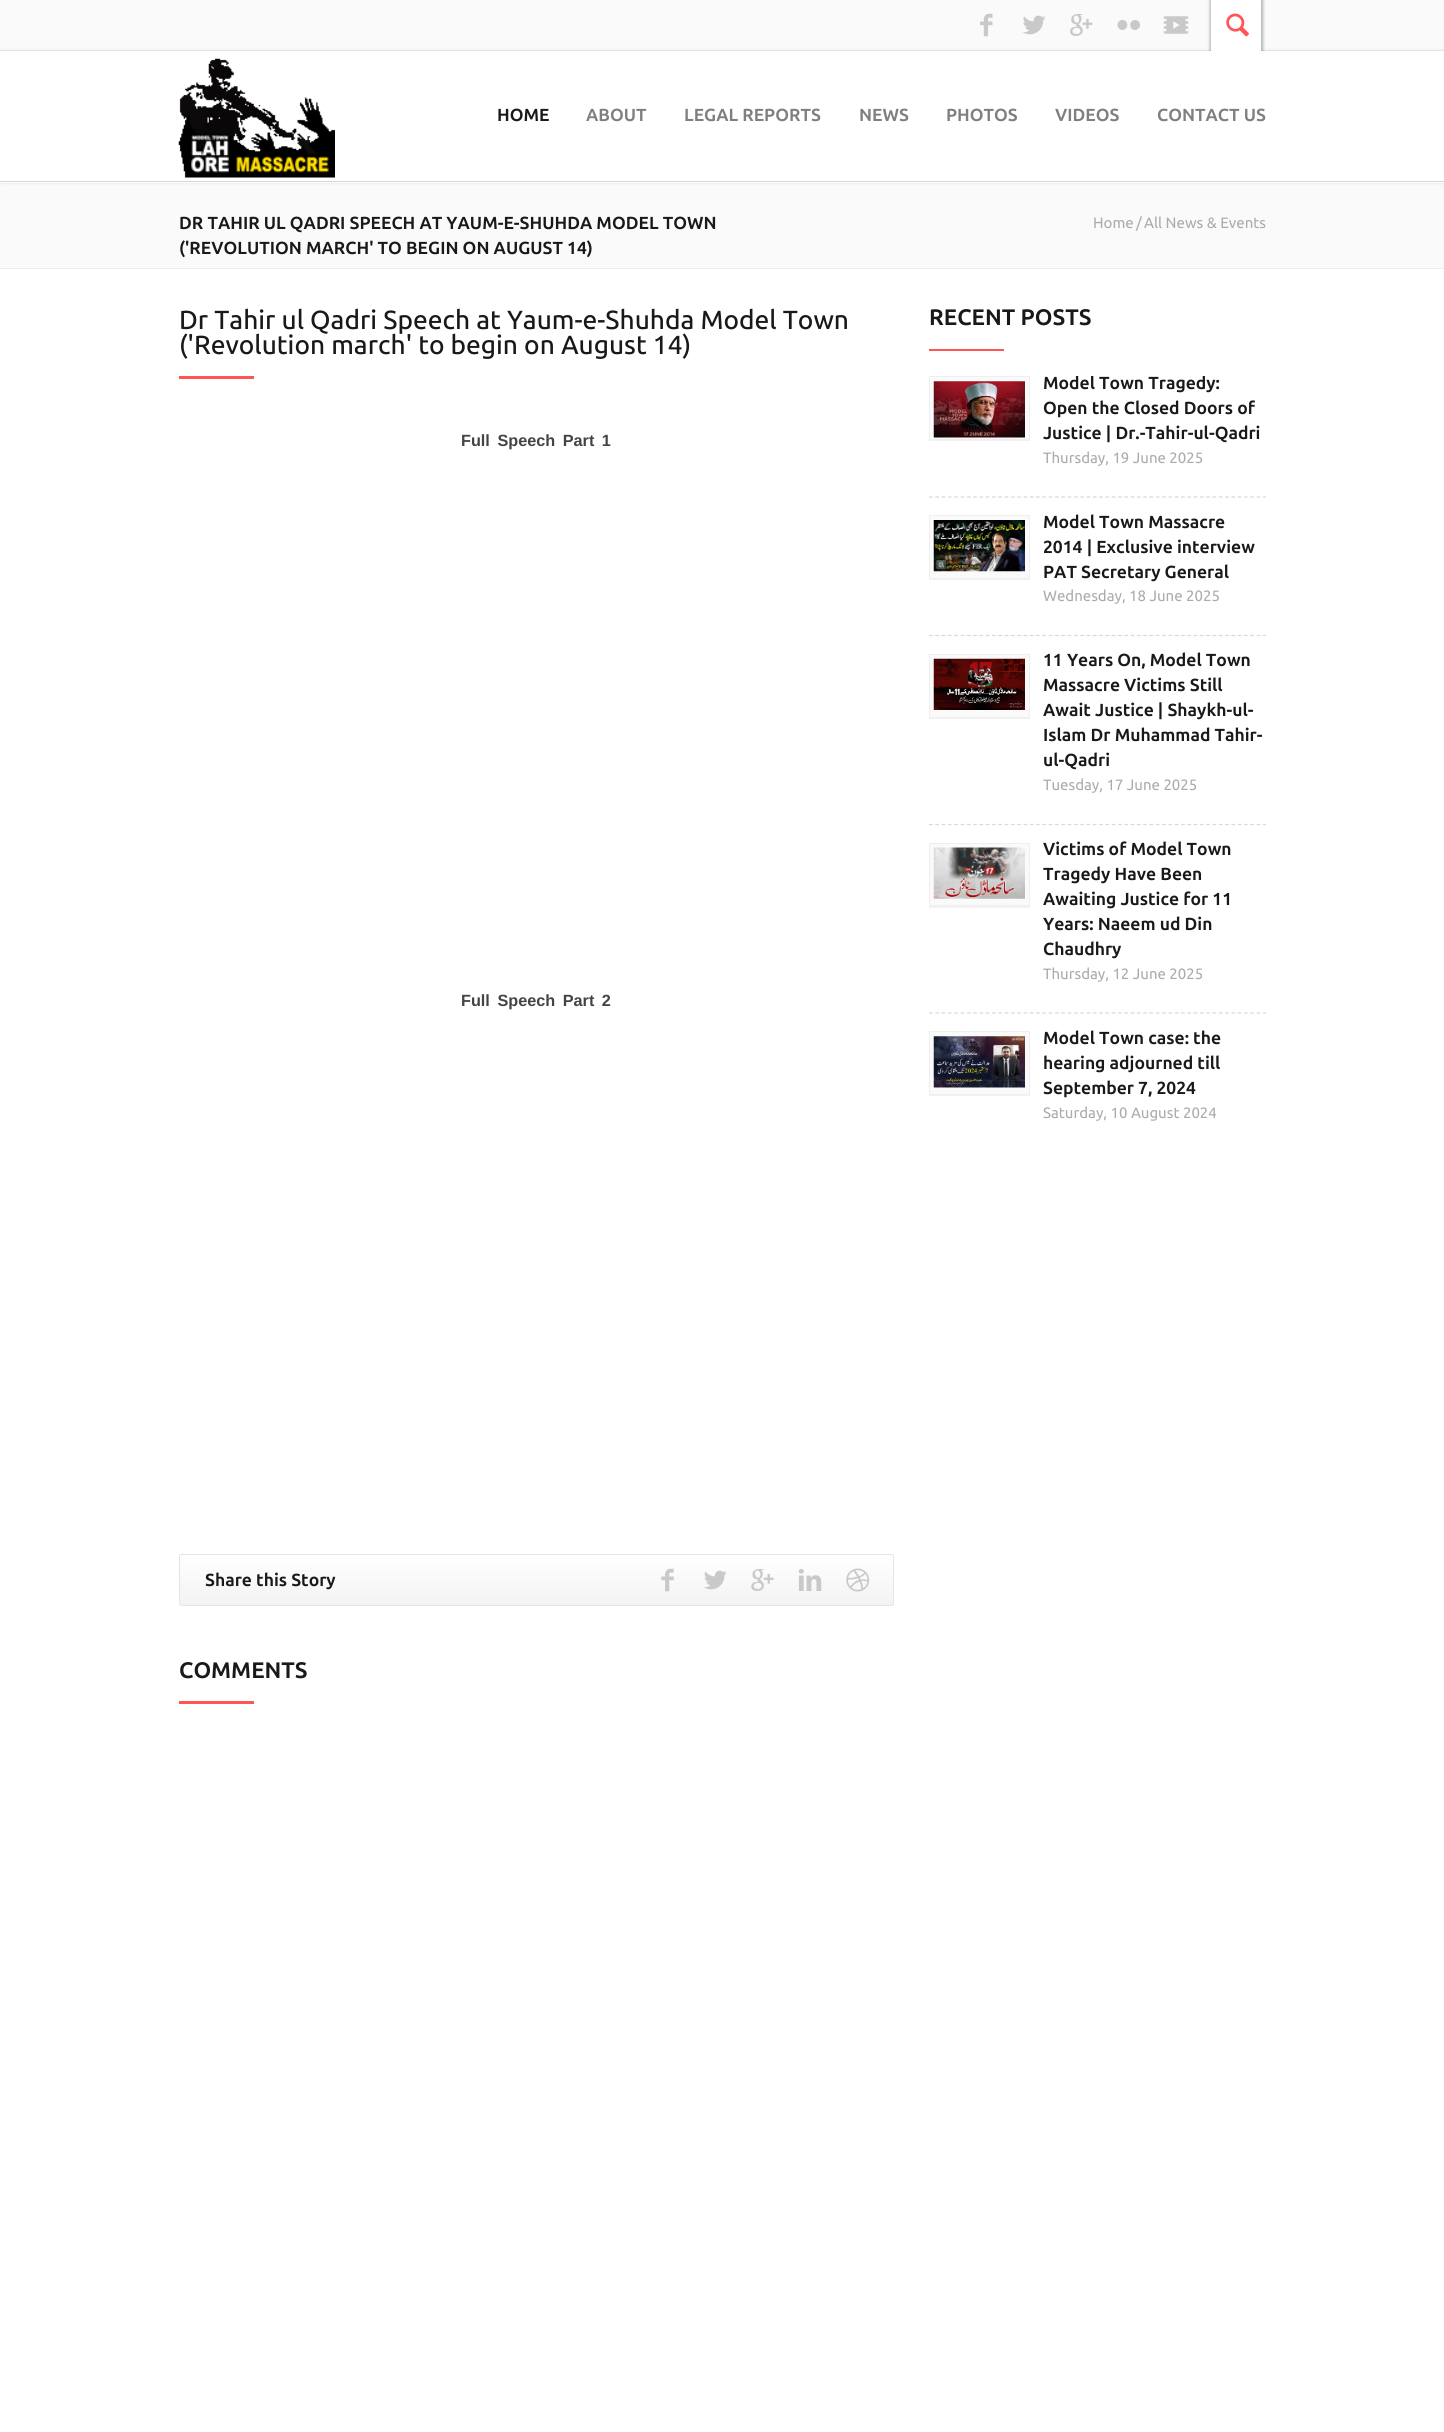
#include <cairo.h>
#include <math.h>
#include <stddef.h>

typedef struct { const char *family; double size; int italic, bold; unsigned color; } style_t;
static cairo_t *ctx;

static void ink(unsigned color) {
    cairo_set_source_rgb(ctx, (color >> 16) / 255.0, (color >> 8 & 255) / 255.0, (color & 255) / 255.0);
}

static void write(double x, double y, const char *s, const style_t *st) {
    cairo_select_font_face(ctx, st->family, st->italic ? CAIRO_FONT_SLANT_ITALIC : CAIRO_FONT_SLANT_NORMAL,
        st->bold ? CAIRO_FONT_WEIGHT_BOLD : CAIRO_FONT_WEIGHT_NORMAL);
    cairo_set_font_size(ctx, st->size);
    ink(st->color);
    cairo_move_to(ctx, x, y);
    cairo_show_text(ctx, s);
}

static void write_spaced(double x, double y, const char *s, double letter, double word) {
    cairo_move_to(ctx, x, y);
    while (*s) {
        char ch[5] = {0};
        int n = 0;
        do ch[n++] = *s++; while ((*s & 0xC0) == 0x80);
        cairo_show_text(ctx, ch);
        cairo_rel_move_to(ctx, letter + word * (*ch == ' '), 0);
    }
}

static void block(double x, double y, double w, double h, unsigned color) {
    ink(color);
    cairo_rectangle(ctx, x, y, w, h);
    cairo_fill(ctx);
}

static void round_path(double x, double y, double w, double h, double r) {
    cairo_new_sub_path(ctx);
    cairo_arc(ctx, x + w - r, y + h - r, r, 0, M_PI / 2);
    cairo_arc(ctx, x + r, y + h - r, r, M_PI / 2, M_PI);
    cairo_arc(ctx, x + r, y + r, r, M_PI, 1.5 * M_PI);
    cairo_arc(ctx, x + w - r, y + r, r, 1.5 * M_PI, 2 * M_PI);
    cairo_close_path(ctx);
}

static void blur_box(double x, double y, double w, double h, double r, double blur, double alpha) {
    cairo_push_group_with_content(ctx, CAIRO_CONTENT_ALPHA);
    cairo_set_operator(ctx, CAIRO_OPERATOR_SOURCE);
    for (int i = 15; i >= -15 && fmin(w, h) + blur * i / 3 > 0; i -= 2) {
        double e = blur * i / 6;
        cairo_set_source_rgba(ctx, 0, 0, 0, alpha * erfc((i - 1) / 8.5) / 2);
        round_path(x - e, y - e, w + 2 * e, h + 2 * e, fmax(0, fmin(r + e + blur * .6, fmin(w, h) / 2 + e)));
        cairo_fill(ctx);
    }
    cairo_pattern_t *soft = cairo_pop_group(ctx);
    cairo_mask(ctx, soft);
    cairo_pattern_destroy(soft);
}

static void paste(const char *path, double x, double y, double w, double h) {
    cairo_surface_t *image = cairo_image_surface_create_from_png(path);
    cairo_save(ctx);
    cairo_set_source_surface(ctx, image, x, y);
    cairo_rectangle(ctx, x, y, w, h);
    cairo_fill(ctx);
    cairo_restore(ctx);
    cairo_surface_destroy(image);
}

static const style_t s1 = {"Ubuntu", 17.5, 0, 1, 0x191919};
static const style_t s2 = {"Ubuntu", 17.5, 0, 1, 0x7f7f7f};
static const style_t s3 = {"Ubuntu", 15, 0, 0, 0xababab};
static const style_t s4 = {"Ubuntu Medium", 26.25, 0, 0, 0x191919};
static const style_t s5 = {"Ubuntu", 22.5, 0, 1, 0x191919};

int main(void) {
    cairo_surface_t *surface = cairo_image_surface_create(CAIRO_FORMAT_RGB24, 1444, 2432);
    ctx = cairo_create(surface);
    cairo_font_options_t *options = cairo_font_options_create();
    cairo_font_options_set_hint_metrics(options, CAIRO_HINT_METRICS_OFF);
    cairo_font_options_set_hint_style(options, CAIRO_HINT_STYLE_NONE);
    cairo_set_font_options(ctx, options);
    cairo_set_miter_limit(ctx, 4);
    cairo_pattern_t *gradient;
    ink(0xffffff);
    cairo_paint(ctx);
    block(0, 0, 1444, 50, 0xfafafa);
    block(0, 50, 1444, 1, 0xededed);
    paste("pic1.png", 980, 13, 13, 24);
    paste("pic2.png", 1023, 15, 23, 20);
    paste("pic3.png", 1070, 14, 23, 22);
    paste("pic4.png", 1117, 20, 23, 10);
    paste("pic5.png", 1163, 16, 26, 18);
    ink(0x000000);
    blur_box(1210, 0, 3, 53, 0, 1.5, 0.3);
    blur_box(1260, 0, 3, 53, 0, 1.5, 0.3);
    block(0, 183, 1444, 85, 0xfafafa);
    ink(0x000000);
    blur_box(0, 51, 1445, 132, 0, 2, 0.1);
    block(1211, 0, 50, 51, 0xffffff);
    paste("pic6.png", 1226, 13, 23, 24);
    block(0, 51, 1444, 132, 0xffffff);
    block(0, 181, 1444, 1, 0xd5d5d5);
    paste("pic7.png", 178, 58, 157, 120);
    write(497, 121, "HOME", &s1);
    write(586, 121, "ABOUT", &s2);
    write(684, 121, "LEGAL REPORTS", &s2);
    write(859, 121, "NEWS", &s2);
    write(946, 121, "PHOTOS", &s2);
    write(1055, 121, "VIDEOS", &s2);
    write(1157, 121, "CONTACT US", &s2);
    block(0, 268, 1444, 1, 0xededed);
    write(179, 229, "DR TAHIR UL QADRI SPEECH AT YAUM-E-SHUHDA MODEL TOWN", &s1);
    write(179, 254, "('REVOLUTION MARCH' TO BEGIN ON AUGUST 14)", &s1);
    write(1093, 228, "Home", &s3);
    write(1136, 228, "/", &s3);
    write(1144, 228, "All News & Events", &s3);
    write(179, 329, "Dr Tahir ul Qadri Speech at Yaum-e-Shuhda Model Town", &s4);
    write(179, 354, "('Revolution march' to begin on August 14)", &s4);
    block(179, 376, 75, 3, 0xff5555);
    cairo_select_font_face(ctx, "Liberation Sans", CAIRO_FONT_SLANT_NORMAL, CAIRO_FONT_WEIGHT_BOLD);
    cairo_set_font_size(ctx, 16.25);
    ink(0x444444);
    write_spaced(461, 446, "Full Speech Part 1", 0, 3);
    write_spaced(461, 1006, "Full Speech Part 2", 0, 3);
    cairo_save(ctx);
    round_path(179, 1554, 715, 52, 2.5);
    cairo_clip(ctx);
    gradient = cairo_pattern_create_linear(536, 1555, 536, 1605);
    cairo_pattern_add_color_stop_rgba(gradient, 0, 1, 1, 1, 1);
    cairo_pattern_add_color_stop_rgba(gradient, 1, 0.953, 0.953, 0.953, 1);
    cairo_set_source(ctx, gradient);
    cairo_pattern_destroy(gradient);
    cairo_rectangle(ctx, 179, 1555, 715, 50);
    cairo_fill(ctx);
    cairo_restore(ctx);
    round_path(179.5, 1554.5, 714, 51, 2);
    ink(0xe5e5e5);
    cairo_set_line_width(ctx, 1);
    cairo_stroke(ctx);
    write(205, 1586, "Share this Story", &s1);
    paste("pic8.png", 661, 1568, 13, 24);
    paste("pic9.png", 704, 1570, 23, 20);
    paste("pic10.png", 751, 1569, 23, 22);
    paste("pic11.png", 798, 1569, 24, 22);
    paste("pic12.png", 846, 1568, 24, 24);
    write(179, 1678, "COMMENTS", &s5);
    block(179, 1701, 75, 3, 0xff5555);
    write(929, 325, "RECENT POSTS", &s5);
    block(929, 349, 75, 2, 0xff5555);
    block(929, 440, 101, 1, 0xf2f2f2);
    ink(0xfafafa);
    cairo_rectangle(ctx, 929.5, 376.5, 100, 63);
    cairo_fill_preserve(ctx);
    ink(0xefefef);
    cairo_stroke(ctx);
    paste("pic13.png", 933, 381, 92, 57);
    cairo_save(ctx);
    cairo_rectangle(ctx, 1043, 376, 223, 94);
    cairo_clip(ctx);
    write(1043, 389, "Model Town Tragedy:", &s1);
    cairo_restore(ctx);
    write(1043, 414, "Open the Closed Doors of", &s1);
    write(1043, 439, "Justice | Dr.-Tahir-ul-Qadri", &s1);
    write(1043, 463, "Thursday, 19 June 2025", &s3);
    cairo_new_path(ctx);
    cairo_move_to(ctx, 929, 497);
    cairo_line_to(ctx, 1266, 497);
    ink(0xd9d9d9);
    cairo_set_line_width(ctx, 1.2);
    cairo_set_dash(ctx, (double[]){3.75, 2.55}, 2, 0);
    cairo_stroke(ctx);
    block(929, 579, 101, 1, 0xf2f2f2);
    ink(0xfafafa);
    cairo_rectangle(ctx, 929.5, 515.5, 100, 63);
    cairo_fill_preserve(ctx);
    ink(0xefefef);
    cairo_set_line_width(ctx, 1);
    cairo_set_dash(ctx, NULL, 0, 0);
    cairo_stroke(ctx);
    paste("pic14.png", 933, 520, 92, 52);
    write(1043, 528, "Model Town Massacre", &s1);
    write(1043, 553, "2014 | Exclusive interview", &s1);
    write(1043, 578, "PAT Secretary General", &s1);
    write(1043, 601, "Wednesday, 18 June 2025", &s3);
    cairo_new_path(ctx);
    cairo_move_to(ctx, 929, 635.5);
    cairo_line_to(ctx, 1266, 635.5);
    ink(0xd9d9d9);
    cairo_set_line_width(ctx, 1.2);
    cairo_set_dash(ctx, (double[]){3.75, 2.55}, 2, 0);
    cairo_stroke(ctx);
    block(929, 718, 101, 1, 0xf2f2f2);
    ink(0xfafafa);
    cairo_rectangle(ctx, 929.5, 654.5, 100, 63);
    cairo_fill_preserve(ctx);
    ink(0xefefef);
    cairo_set_line_width(ctx, 1);
    cairo_set_dash(ctx, NULL, 0, 0);
    cairo_stroke(ctx);
    paste("pic15.png", 933, 658, 92, 52);
    write(1043, 666, "11 Years On, Model Town", &s1);
    write(1043, 691, "Massacre Victims Still", &s1);
    write(1043, 716, "Await Justice | Shaykh-ul-", &s1);
    write(1043, 741, "Islam Dr Muhammad Tahir-", &s1);
    write(1043, 766, "ul-Qadri", &s1);
    write(1043, 790, "Tuesday, 17 June 2025", &s3);
    cairo_new_path(ctx);
    cairo_move_to(ctx, 929, 824.5);
    cairo_line_to(ctx, 1266, 824.5);
    ink(0xd9d9d9);
    cairo_set_line_width(ctx, 1.2);
    cairo_set_dash(ctx, (double[]){3.75, 2.55}, 2, 0);
    cairo_stroke(ctx);
    block(929, 906, 101, 2, 0xf2f2f2);
    ink(0xfafafa);
    cairo_rectangle(ctx, 929.5, 843.5, 100, 62);
    cairo_fill_preserve(ctx);
    ink(0xefefef);
    cairo_set_line_width(ctx, 1);
    cairo_set_dash(ctx, NULL, 0, 0);
    cairo_stroke(ctx);
    paste("pic16.png", 933, 847, 92, 52);
    write(1043, 855, "Victims of Model Town", &s1);
    write(1043, 880, "Tragedy Have Been", &s1);
    write(1043, 905, "Awaiting Justice for 11", &s1);
    write(1043, 930, "Years: Naeem ud Din", &s1);
    write(1043, 955, "Chaudhry", &s1);
    write(1043, 979, "Thursday, 12 June 2025", &s3);
    cairo_new_path(ctx);
    cairo_move_to(ctx, 929, 1013);
    cairo_line_to(ctx, 1266, 1013);
    ink(0xd9d9d9);
    cairo_set_line_width(ctx, 1.2);
    cairo_set_dash(ctx, (double[]){3.75, 2.55}, 2, 0);
    cairo_stroke(ctx);
    block(929, 1095, 101, 1, 0xf2f2f2);
    ink(0xfafafa);
    cairo_rectangle(ctx, 929.5, 1031.5, 100, 63);
    cairo_fill_preserve(ctx);
    ink(0xefefef);
    cairo_set_line_width(ctx, 1);
    cairo_set_dash(ctx, NULL, 0, 0);
    cairo_stroke(ctx);
    paste("pic17.png", 933, 1036, 92, 52);
    write(1043, 1044, "Model Town case: the", &s1);
    write(1043, 1069, "hearing adjourned till", &s1);
    write(1043, 1094, "September 7, 2024", &s1);
    write(1043, 1118, "Saturday, 10 August 2024", &s3);
    cairo_surface_write_to_png(surface, "screenshot.png");
    cairo_font_options_destroy(options);
    cairo_destroy(ctx);
    cairo_surface_destroy(surface);
    return 0;
}
